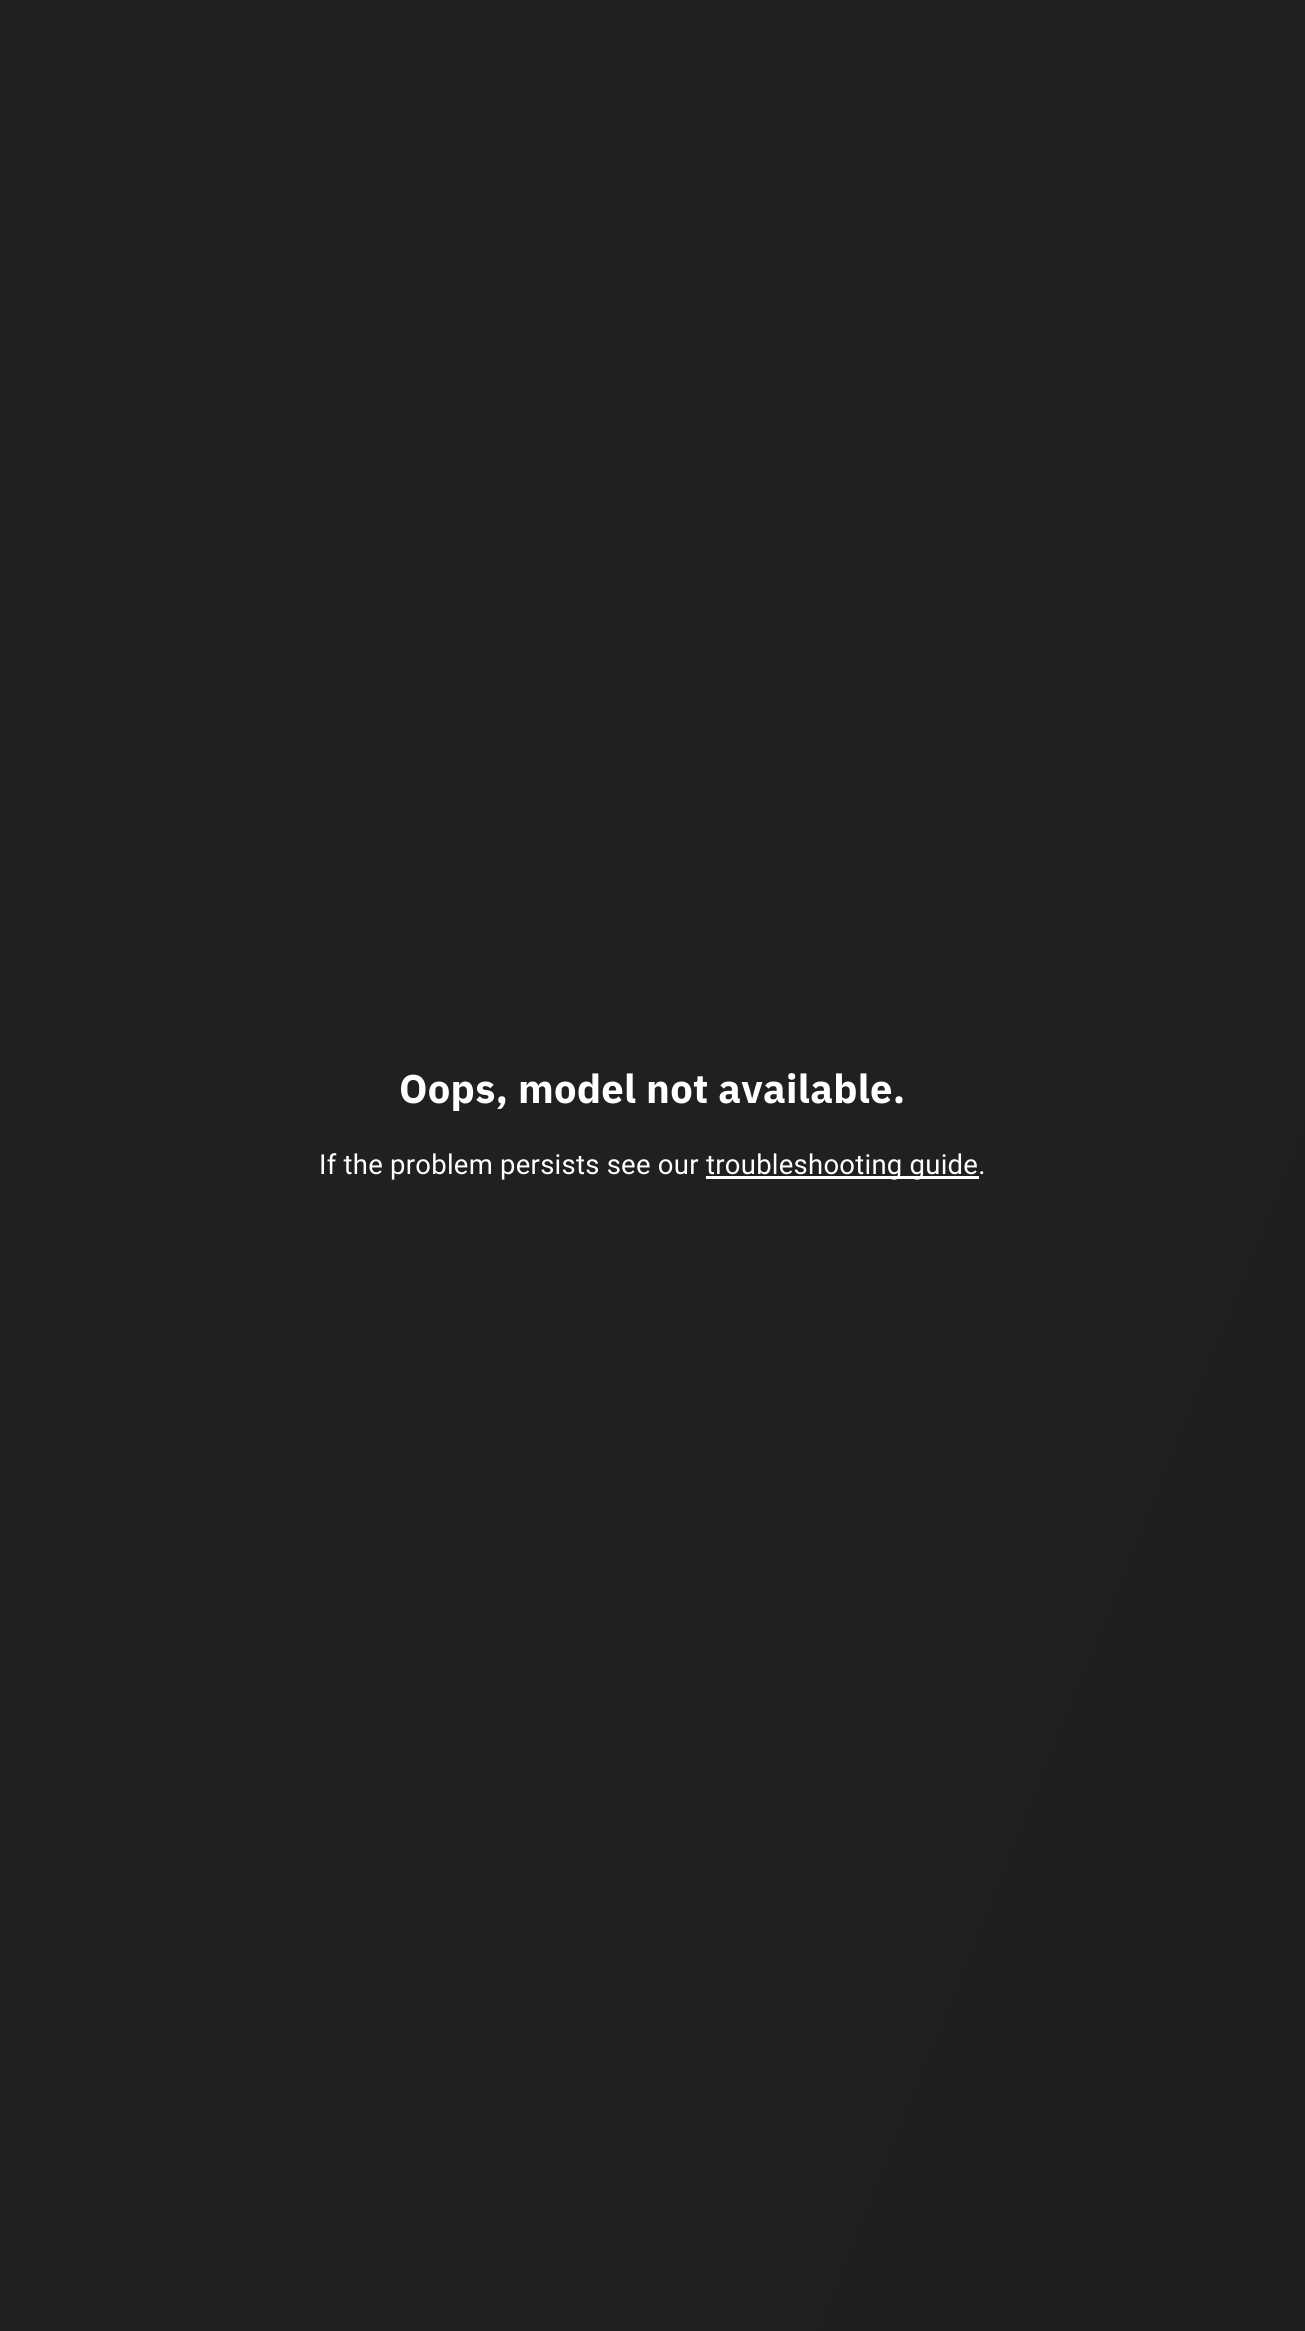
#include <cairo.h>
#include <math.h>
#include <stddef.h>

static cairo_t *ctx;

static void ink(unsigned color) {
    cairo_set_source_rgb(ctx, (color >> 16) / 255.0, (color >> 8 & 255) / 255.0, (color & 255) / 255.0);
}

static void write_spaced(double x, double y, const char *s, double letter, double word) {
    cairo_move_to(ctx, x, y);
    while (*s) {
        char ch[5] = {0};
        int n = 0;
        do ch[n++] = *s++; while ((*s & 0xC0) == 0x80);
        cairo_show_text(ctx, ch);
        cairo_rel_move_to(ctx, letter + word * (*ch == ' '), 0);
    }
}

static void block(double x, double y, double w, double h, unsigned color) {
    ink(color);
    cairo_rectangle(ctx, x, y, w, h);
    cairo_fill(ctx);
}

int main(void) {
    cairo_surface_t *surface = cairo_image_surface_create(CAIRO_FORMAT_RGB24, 1305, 2331);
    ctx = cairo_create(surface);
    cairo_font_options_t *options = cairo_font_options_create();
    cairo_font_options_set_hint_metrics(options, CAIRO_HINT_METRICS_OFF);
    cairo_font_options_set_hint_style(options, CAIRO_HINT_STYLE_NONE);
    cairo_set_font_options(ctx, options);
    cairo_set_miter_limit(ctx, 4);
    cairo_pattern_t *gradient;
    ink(0xffffff);
    cairo_paint(ctx);
    gradient = cairo_pattern_create_linear(-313, 775, 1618, 1556);
    cairo_pattern_add_color_stop_rgba(gradient, 0, 0.129, 0.129, 0.129, 1);
    cairo_pattern_add_color_stop_rgba(gradient, 1, 0.122, 0.122, 0.122, 1);
    cairo_set_source(ctx, gradient);
    cairo_pattern_destroy(gradient);
    cairo_rectangle(ctx, 0, 0, 1305, 2331);
    cairo_fill(ctx);
    cairo_select_font_face(ctx, "IBM Plex Sans", CAIRO_FONT_SLANT_NORMAL, CAIRO_FONT_WEIGHT_BOLD);
    cairo_set_font_size(ctx, 40);
    ink(0xffffff);
    write_spaced(399, 1103, "Oops, model not available.", 0.25, 0);
    cairo_select_font_face(ctx, "Roboto", CAIRO_FONT_SLANT_NORMAL, CAIRO_FONT_WEIGHT_NORMAL);
    cairo_set_font_size(ctx, 27.5);
    write_spaced(319, 1174, "If the problem persists see our", 0.25, 0);
    block(706, 1176, 273, 3, 0xffffff);
    write_spaced(706, 1174, "troubleshooting guide.", 0.25, 0);
    cairo_surface_write_to_png(surface, "screenshot.png");
    cairo_font_options_destroy(options);
    cairo_destroy(ctx);
    cairo_surface_destroy(surface);
    return 0;
}
